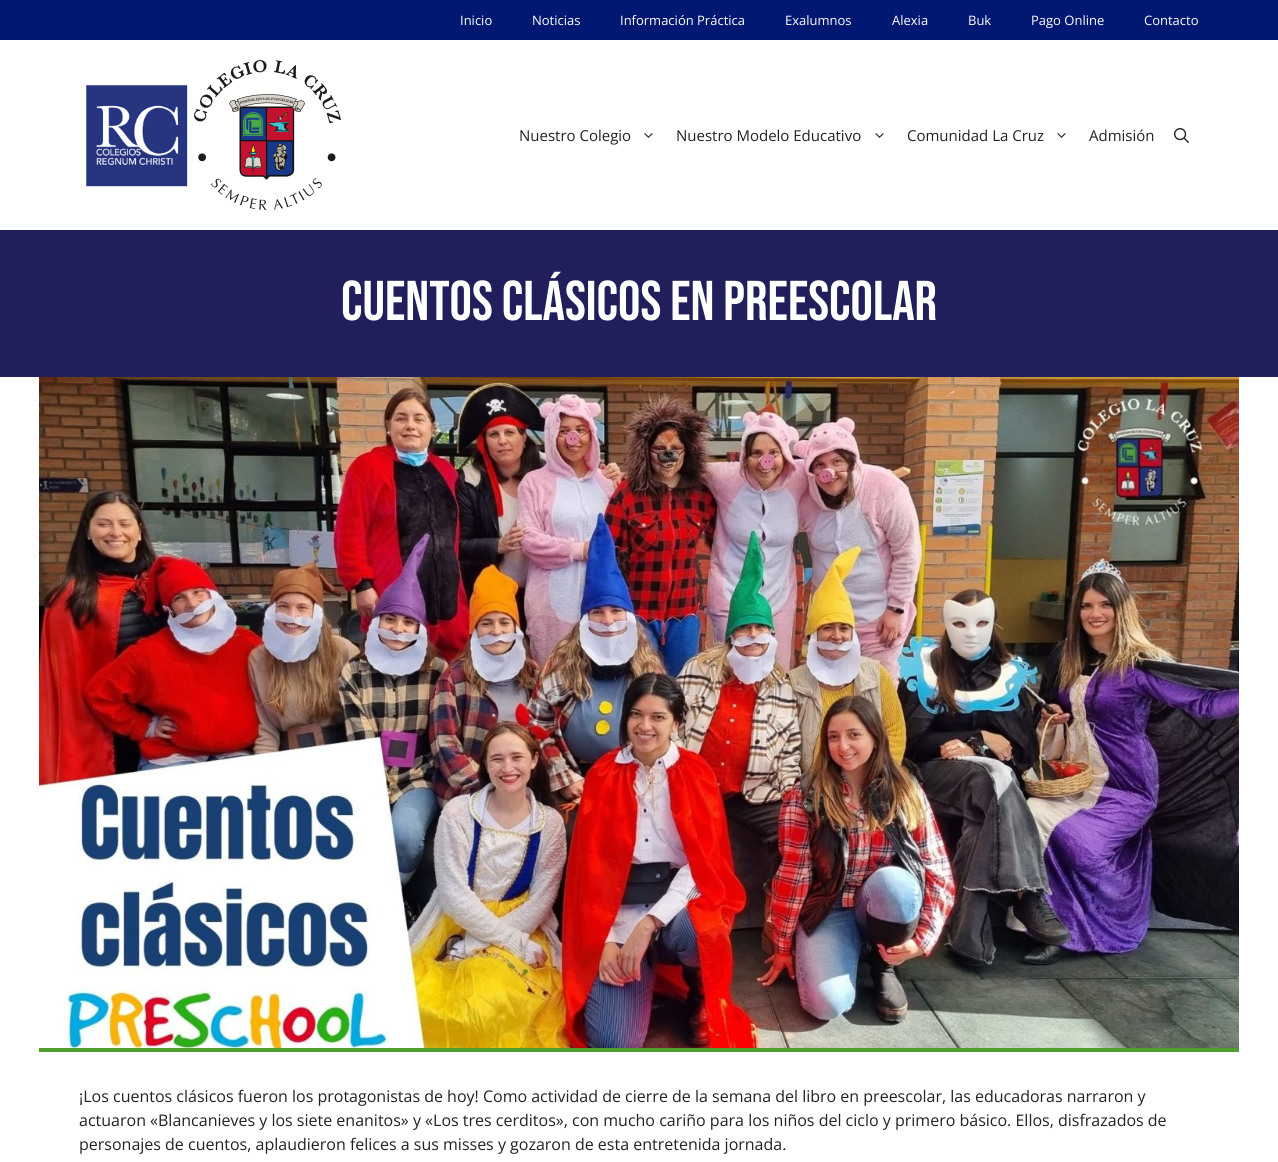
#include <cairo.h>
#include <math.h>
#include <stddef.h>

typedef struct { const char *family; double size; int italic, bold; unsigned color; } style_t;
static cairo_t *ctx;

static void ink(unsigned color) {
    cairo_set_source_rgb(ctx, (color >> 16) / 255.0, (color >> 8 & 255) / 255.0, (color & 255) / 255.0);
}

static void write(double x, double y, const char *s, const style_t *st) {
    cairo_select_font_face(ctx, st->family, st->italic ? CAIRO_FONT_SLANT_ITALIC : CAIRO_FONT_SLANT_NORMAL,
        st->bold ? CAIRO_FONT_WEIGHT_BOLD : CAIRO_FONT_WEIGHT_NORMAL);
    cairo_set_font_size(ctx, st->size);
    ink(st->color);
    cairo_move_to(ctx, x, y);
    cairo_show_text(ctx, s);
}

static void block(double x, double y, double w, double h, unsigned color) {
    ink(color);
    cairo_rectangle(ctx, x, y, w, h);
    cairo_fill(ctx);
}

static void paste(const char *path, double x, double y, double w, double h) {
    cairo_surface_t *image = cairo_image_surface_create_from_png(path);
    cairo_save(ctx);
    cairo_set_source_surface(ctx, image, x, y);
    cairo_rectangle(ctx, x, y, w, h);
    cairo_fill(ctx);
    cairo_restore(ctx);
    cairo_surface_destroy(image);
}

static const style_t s1 = {"Open Sans", 13, 0, 0, 0xffffff};
static const style_t s2 = {"Open Sans", 15, 0, 0, 0x222222};
static const style_t s3 = {"Bebas Neue", 56, 0, 0, 0xffffff};
static const style_t s4 = {"Open Sans", 16, 0, 0, 0x222222};

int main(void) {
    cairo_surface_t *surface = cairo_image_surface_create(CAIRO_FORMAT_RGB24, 1278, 1162);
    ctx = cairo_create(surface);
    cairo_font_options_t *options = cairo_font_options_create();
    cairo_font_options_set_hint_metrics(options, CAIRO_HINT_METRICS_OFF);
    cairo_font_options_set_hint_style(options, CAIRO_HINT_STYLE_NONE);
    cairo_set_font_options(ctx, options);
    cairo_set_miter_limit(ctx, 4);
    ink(0xffffff);
    cairo_paint(ctx);
    block(0, 0, 1278, 40, 0x001871);
    write(460, 25, "Inicio", &s1);
    write(532, 25, "Noticias", &s1);
    write(620, 25, "Información Práctica", &s1);
    write(785, 25, "Exalumnos", &s1);
    write(892, 25, "Alexia", &s1);
    write(968, 25, "Buk", &s1);
    write(1031, 25, "Pago Online", &s1);
    write(1144, 25, "Contacto", &s1);
    paste("pic1.png", 86, 85, 102, 102);
    paste("pic2.png", 194, 60, 147, 150);
    write(519, 141, "Nuestro Colegio", &s2);
    paste("pic3.png", 644, 133, 9, 5);
    write(676, 141, "Nuestro Modelo Educativo", &s2);
    paste("pic3.png", 875, 133, 9, 5);
    write(907, 141, "Comunidad La Cruz", &s2);
    paste("pic3.png", 1057, 133, 9, 5);
    write(1089, 141, "Admisión", &s2);
    paste("pic4.png", 1174, 128, 15, 15);
    block(0, 230, 1278, 147, 0x201e5b);
    write(341, 320, "Cuentos clásicos en Preescolar", &s3);
    block(39, 1048, 1200, 4, 0x509e2f);
    paste("pic5.png", 39, 377, 1200, 671);
    write(79, 1102, "¡Los cuentos clásicos fueron los protagonistas de hoy! Como actividad de cierre de la semana del libro en preescolar, las educadoras narraron y", &s4);
    write(79, 1126, "actuaron «Blancanieves y los siete enanitos» y «Los tres cerditos», con mucho cariño para los niños del ciclo y primero básico. Ellos, disfrazados de", &s4);
    write(79, 1150, "personajes de cuentos, aplaudieron felices a sus misses y gozaron de esta entretenida jornada.", &s4);
    cairo_surface_write_to_png(surface, "screenshot.png");
    cairo_font_options_destroy(options);
    cairo_destroy(ctx);
    cairo_surface_destroy(surface);
    return 0;
}
